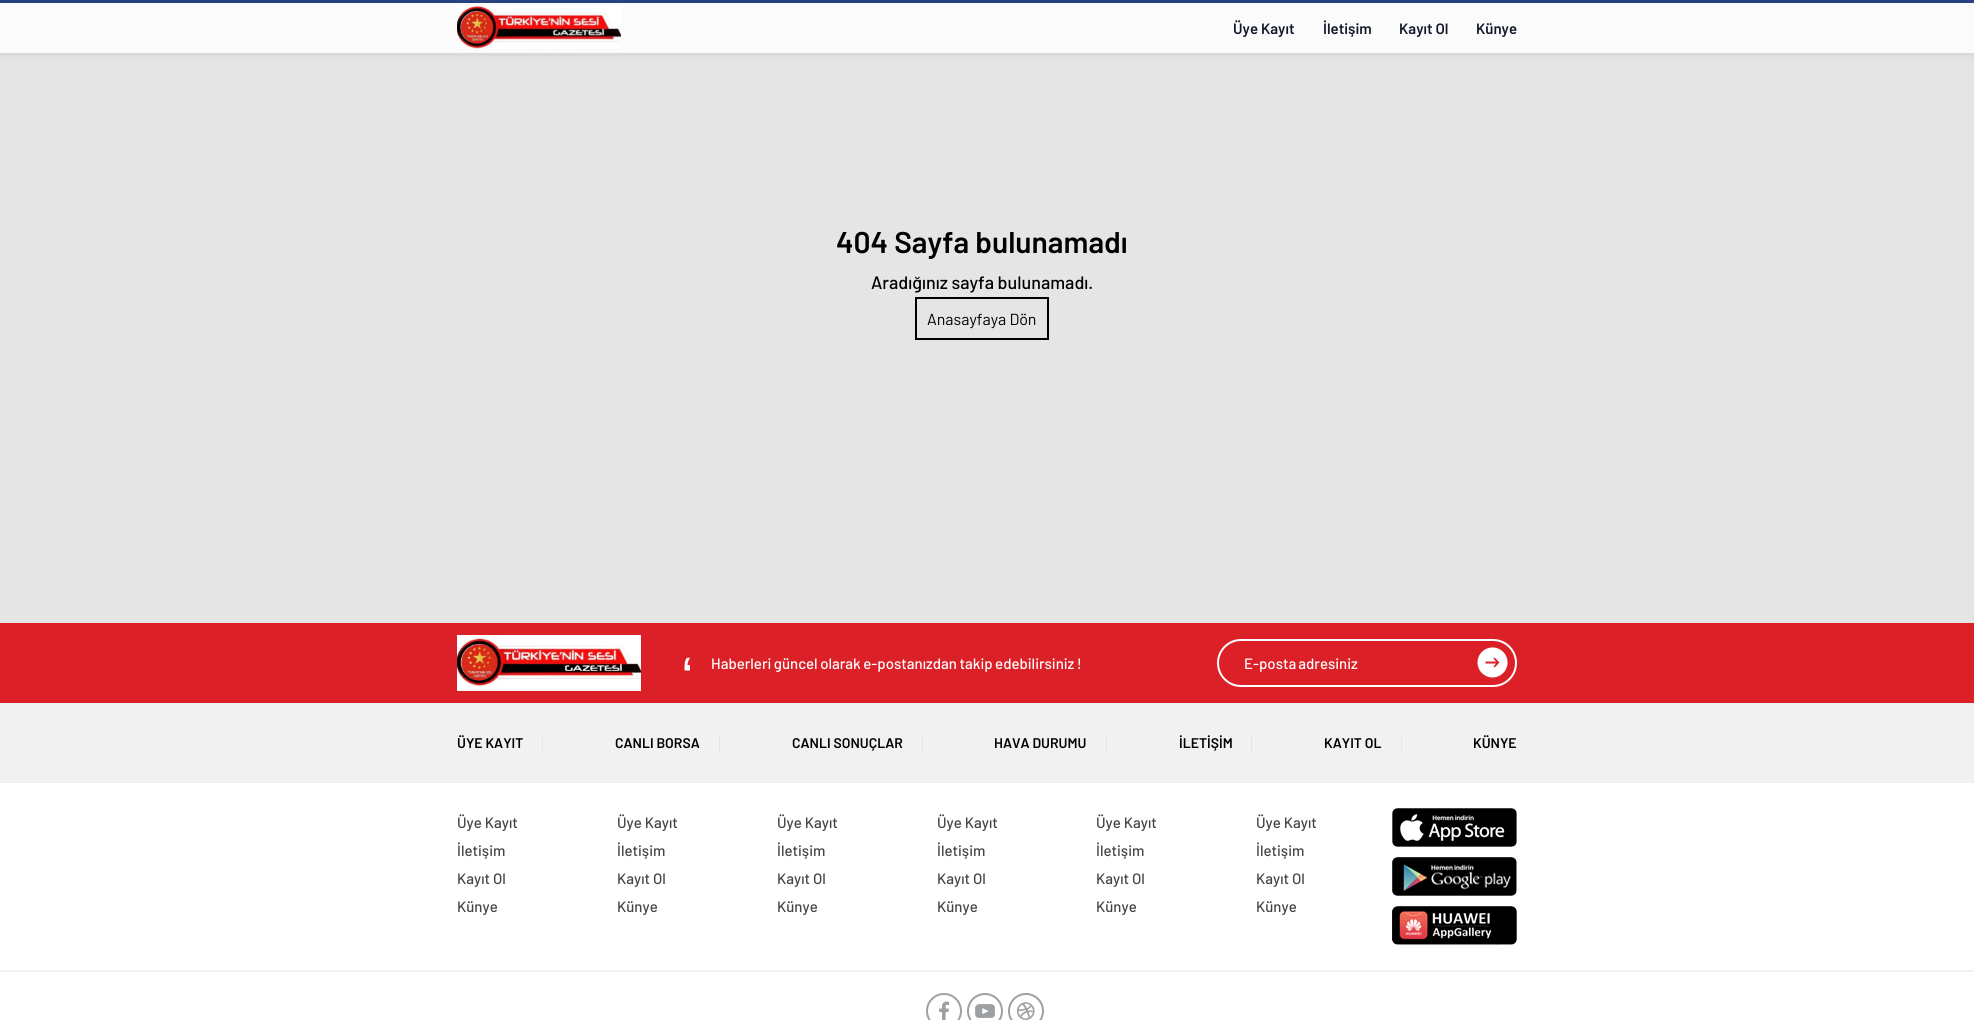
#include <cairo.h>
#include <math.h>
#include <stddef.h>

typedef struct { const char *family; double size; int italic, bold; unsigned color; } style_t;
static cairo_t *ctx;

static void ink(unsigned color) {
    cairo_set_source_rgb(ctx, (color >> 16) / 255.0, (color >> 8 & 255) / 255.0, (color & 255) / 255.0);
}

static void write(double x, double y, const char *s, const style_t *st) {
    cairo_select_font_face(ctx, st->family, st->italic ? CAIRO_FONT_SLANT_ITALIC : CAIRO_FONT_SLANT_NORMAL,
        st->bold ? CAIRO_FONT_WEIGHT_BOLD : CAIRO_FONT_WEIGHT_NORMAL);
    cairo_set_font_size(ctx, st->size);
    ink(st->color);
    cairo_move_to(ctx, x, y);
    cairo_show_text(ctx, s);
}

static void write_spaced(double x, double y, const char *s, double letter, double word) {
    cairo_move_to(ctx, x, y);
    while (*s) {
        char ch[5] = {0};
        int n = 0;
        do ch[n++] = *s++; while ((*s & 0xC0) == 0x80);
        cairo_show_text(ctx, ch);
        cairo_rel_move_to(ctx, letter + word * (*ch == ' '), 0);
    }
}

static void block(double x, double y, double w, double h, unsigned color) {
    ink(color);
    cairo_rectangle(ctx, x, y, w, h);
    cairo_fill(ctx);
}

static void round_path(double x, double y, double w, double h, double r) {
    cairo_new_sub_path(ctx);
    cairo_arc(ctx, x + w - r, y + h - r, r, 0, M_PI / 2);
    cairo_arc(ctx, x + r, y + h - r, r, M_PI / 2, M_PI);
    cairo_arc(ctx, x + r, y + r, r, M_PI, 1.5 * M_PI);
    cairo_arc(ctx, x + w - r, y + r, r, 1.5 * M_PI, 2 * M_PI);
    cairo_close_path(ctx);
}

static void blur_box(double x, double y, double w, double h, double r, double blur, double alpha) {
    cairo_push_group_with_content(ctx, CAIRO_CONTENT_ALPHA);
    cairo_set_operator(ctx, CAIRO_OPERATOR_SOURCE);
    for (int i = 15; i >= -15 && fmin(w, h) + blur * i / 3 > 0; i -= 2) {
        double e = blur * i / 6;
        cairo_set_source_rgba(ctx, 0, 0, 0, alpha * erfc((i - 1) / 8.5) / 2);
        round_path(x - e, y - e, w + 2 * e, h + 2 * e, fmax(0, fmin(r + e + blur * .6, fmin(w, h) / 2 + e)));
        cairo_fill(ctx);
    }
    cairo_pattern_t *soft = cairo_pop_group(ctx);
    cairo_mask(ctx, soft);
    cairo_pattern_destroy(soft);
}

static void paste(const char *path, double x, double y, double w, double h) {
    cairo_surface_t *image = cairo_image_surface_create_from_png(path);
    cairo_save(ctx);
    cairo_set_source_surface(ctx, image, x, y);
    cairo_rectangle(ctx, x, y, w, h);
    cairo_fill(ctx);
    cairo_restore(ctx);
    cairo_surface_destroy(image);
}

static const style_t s1 = {"Barlow SemiBold", 15, 0, 0, 0x12182a};
static const style_t s2 = {"Barlow SemiBold", 30, 0, 0, 0x000000};
static const style_t s3 = {"Barlow Medium", 18, 0, 0, 0x000000};
static const style_t s4 = {"Barlow", 16, 0, 0, 0x000000};
static const style_t s5 = {"Liberation Sans", 57, 0, 0, 0xffffff};
static const style_t s6 = {"Barlow SemiBold", 14, 0, 0, 0x000000};
static const style_t s7 = {"Barlow Medium", 15, 0, 0, 0x444343};

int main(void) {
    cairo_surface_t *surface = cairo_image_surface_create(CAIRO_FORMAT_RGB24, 1974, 1020);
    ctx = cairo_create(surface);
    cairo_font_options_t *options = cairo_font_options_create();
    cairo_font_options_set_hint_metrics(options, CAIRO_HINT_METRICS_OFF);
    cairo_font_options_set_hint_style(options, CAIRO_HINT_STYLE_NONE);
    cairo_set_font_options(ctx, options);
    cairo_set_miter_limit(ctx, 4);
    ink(0xe5e5e5);
    cairo_paint(ctx);
    ink(0xbababa);
    blur_box(0, 1, 1974, 53, 0, 4, 0.58);
    block(0, 3, 1974, 50, 0xfbfbfb);
    block(0, 0, 1974, 3, 0x264380);
    paste("pic1.png", 457, 6, 164, 43);
    write(1233, 34, "Üye Kayıt", &s1);
    write(1323, 34, "İletişim", &s1);
    write(1399, 34, "Kayıt Ol", &s1);
    write(1476, 34, "Künye", &s1);
    write(836, 253, "404 Sayfa bulunamadı", &s2);
    write(871, 289, "Aradığınız sayfa bulunamadı.", &s3);
    cairo_rectangle(ctx, 916, 298, 132, 41);
    cairo_stroke(ctx);
    write(927, 325, "Anasayfaya Dön", &s4);
    block(0, 783, 1974, 237, 0xffffff);
    block(0, 623, 1974, 80, 0xdb2027);
    paste("pic2.png", 457, 635, 184, 56);
    write(681, 697, "‘", &s5);
    cairo_select_font_face(ctx, "Barlow Medium", CAIRO_FONT_SLANT_NORMAL, CAIRO_FONT_WEIGHT_NORMAL);
    cairo_set_font_size(ctx, 15);
    write_spaced(711, 669, "Haberleri güncel olarak e-postanızdan takip edebilirsiniz !", 0, -0.5);
    round_path(1218, 640, 298, 46, 23);
    cairo_stroke(ctx);
    write_spaced(1244, 669, "E-posta adresiniz", 0, -1);
    paste("pic3.png", 1477, 647, 31, 31);
    block(0, 703, 1974, 80, 0xf1f1f1);
    write(457, 748, "ÜYE KAYIT", &s6);
    block(542, 735, 1, 17, 0xe6e6e6);
    write(615, 748, "CANLI BORSA", &s6);
    block(719, 735, 1, 17, 0xe6e6e6);
    write(792, 748, "CANLI SONUÇLAR", &s6);
    block(922, 735, 1, 17, 0xe6e6e6);
    write(994, 748, "HAVA DURUMU", &s6);
    block(1106, 735, 1, 17, 0xe6e6e6);
    write(1179, 748, "İLETİŞİM", &s6);
    block(1251, 735, 1, 17, 0xe6e6e6);
    write(1324, 748, "KAYIT OL", &s6);
    block(1401, 735, 1, 17, 0xe6e6e6);
    write(1473, 748, "KÜNYE", &s6);
    write(457, 828, "Üye Kayıt", &s7);
    write(457, 856, "İletişim", &s7);
    write(457, 884, "Kayıt Ol", &s7);
    write(457, 912, "Künye", &s7);
    write(617, 828, "Üye Kayıt", &s7);
    write(617, 856, "İletişim", &s7);
    write(617, 884, "Kayıt Ol", &s7);
    write(617, 912, "Künye", &s7);
    write(777, 828, "Üye Kayıt", &s7);
    write(777, 856, "İletişim", &s7);
    write(777, 884, "Kayıt Ol", &s7);
    write(777, 912, "Künye", &s7);
    write(937, 828, "Üye Kayıt", &s7);
    write(937, 856, "İletişim", &s7);
    write(937, 884, "Kayıt Ol", &s7);
    write(937, 912, "Künye", &s7);
    write(1096, 828, "Üye Kayıt", &s7);
    write(1096, 856, "İletişim", &s7);
    write(1096, 884, "Kayıt Ol", &s7);
    write(1096, 912, "Künye", &s7);
    write(1256, 828, "Üye Kayıt", &s7);
    write(1256, 856, "İletişim", &s7);
    write(1256, 884, "Kayıt Ol", &s7);
    write(1256, 912, "Künye", &s7);
    paste("pic4.png", 1392, 808, 125, 39);
    paste("pic5.png", 1392, 857, 125, 39);
    paste("pic6.png", 1392, 906, 125, 39);
    block(0, 970, 1974, 2, 0xf1f1f1);
    cairo_arc(ctx, 944, 1011, 17, 0, 2 * M_PI);
    ink(0x9da1a4);
    cairo_stroke(ctx);
    paste("pic7.png", 939, 1001, 10, 19);
    cairo_arc(ctx, 985, 1011, 17, 0, 2 * M_PI);
    cairo_stroke(ctx);
    paste("pic8.png", 975, 1004, 20, 14);
    cairo_arc(ctx, 1026, 1011, 17, 0, 2 * M_PI);
    cairo_stroke(ctx);
    paste("pic9.png", 1017, 1002, 18, 18);
    cairo_surface_write_to_png(surface, "screenshot.png");
    cairo_font_options_destroy(options);
    cairo_destroy(ctx);
    cairo_surface_destroy(surface);
    return 0;
}
